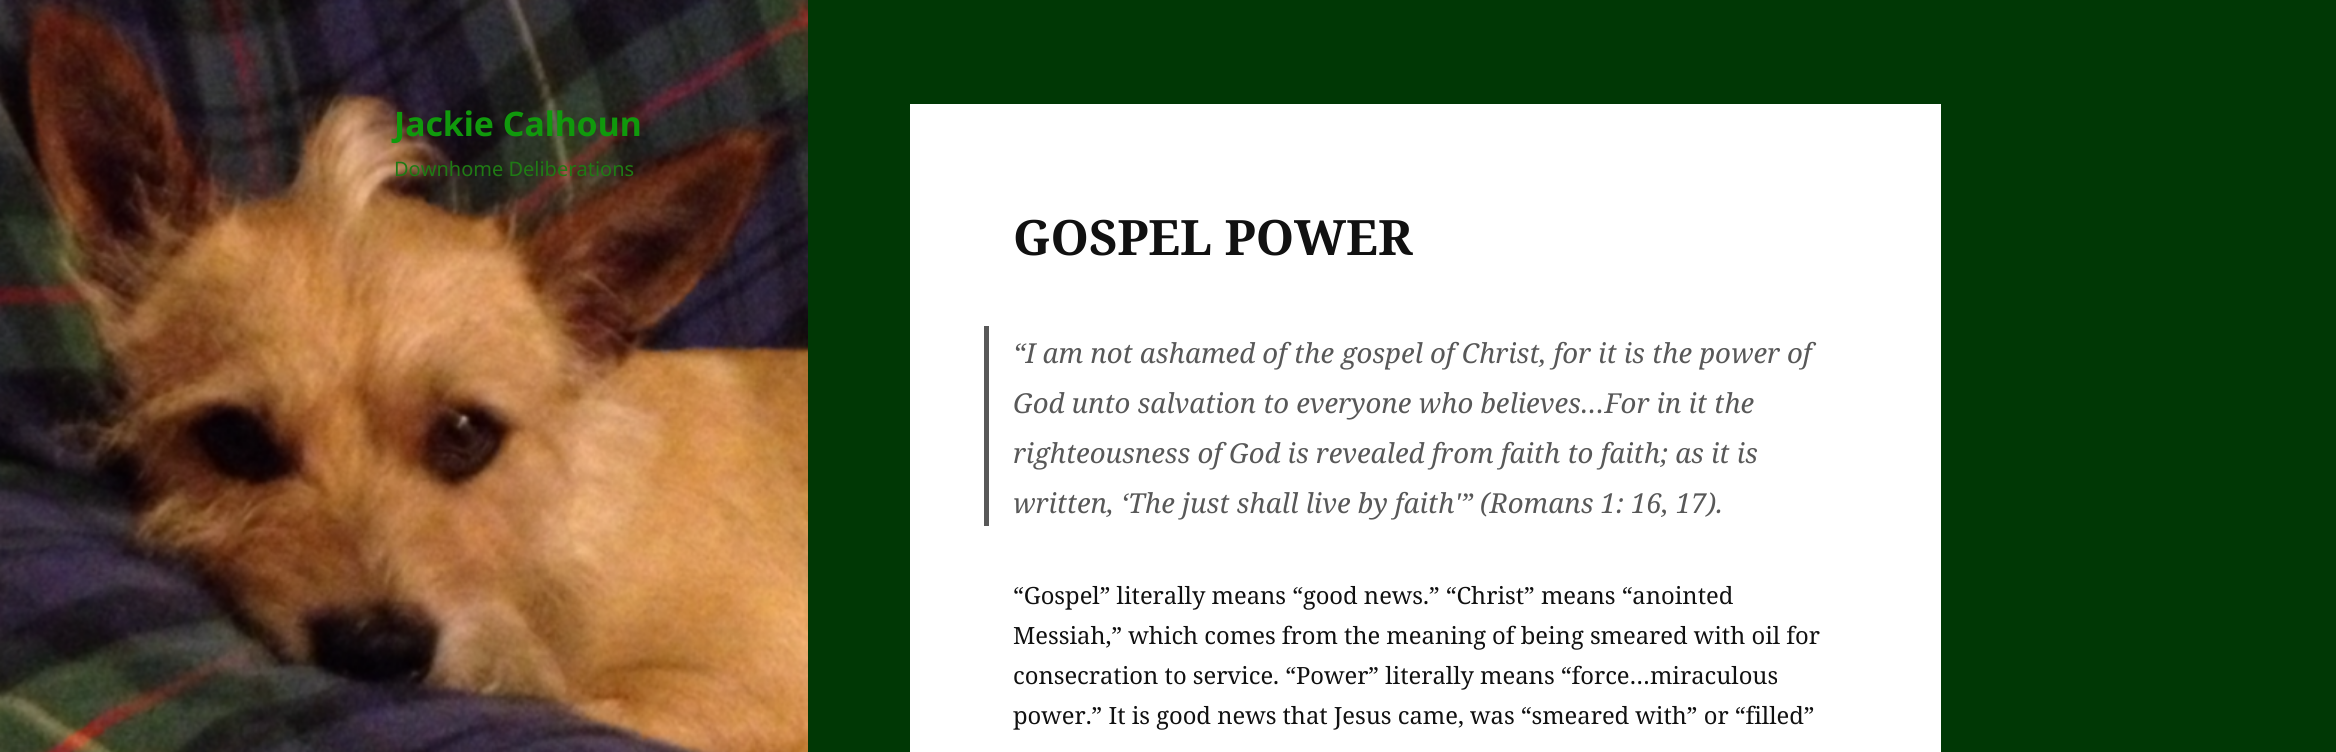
#include <cairo.h>
#include <math.h>
#include <stddef.h>

typedef struct { const char *family; double size; int italic, bold; unsigned color; } style_t;
static cairo_t *ctx;

static void ink(unsigned color) {
    cairo_set_source_rgb(ctx, (color >> 16) / 255.0, (color >> 8 & 255) / 255.0, (color & 255) / 255.0);
}

static void write(double x, double y, const char *s, const style_t *st) {
    cairo_select_font_face(ctx, st->family, st->italic ? CAIRO_FONT_SLANT_ITALIC : CAIRO_FONT_SLANT_NORMAL,
        st->bold ? CAIRO_FONT_WEIGHT_BOLD : CAIRO_FONT_WEIGHT_NORMAL);
    cairo_set_font_size(ctx, st->size);
    ink(st->color);
    cairo_move_to(ctx, x, y);
    cairo_show_text(ctx, s);
}

static void block(double x, double y, double w, double h, unsigned color) {
    ink(color);
    cairo_rectangle(ctx, x, y, w, h);
    cairo_fill(ctx);
}

static void paste(const char *path, double x, double y, double w, double h) {
    cairo_surface_t *image = cairo_image_surface_create_from_png(path);
    cairo_save(ctx);
    cairo_set_source_surface(ctx, image, x, y);
    cairo_rectangle(ctx, x, y, w, h);
    cairo_fill(ctx);
    cairo_restore(ctx);
    cairo_surface_destroy(image);
}

static const style_t s1 = {"Noto Sans", 33.75, 0, 1, 0x10990c};
static const style_t s2 = {"Noto Sans", 20, 0, 0, 0x1f7a14};
static const style_t s3 = {"Noto Serif", 48.75, 0, 1, 0x111111};
static const style_t s4 = {"Noto Serif", 27.5, 1, 0, 0x585858};
static const style_t s5 = {"Noto Serif", 23.75, 0, 0, 0x111111};

int main(void) {
    cairo_surface_t *surface = cairo_image_surface_create(CAIRO_FORMAT_RGB24, 2336, 752);
    ctx = cairo_create(surface);
    cairo_font_options_t *options = cairo_font_options_create();
    cairo_font_options_set_hint_metrics(options, CAIRO_HINT_METRICS_OFF);
    cairo_font_options_set_hint_style(options, CAIRO_HINT_STYLE_NONE);
    cairo_set_font_options(ctx, options);
    cairo_set_miter_limit(ctx, 4);
    ink(0x003805);
    cairo_paint(ctx);
    paste("pic1.png", 0, 0, 808, 752);
    write(394, 136, "Jackie Calhoun", &s1);
    write(394, 176, "Downhome Deliberations", &s2);
    block(910, 104, 1031, 648, 0xffffff);
    write(1013, 255, "GOSPEL POWER", &s3);
    block(984, 326, 5, 200, 0x585858);
    write(1013, 363, "“I am not ashamed of the gospel of Christ, for it is the power of", &s4);
    write(1013, 413, "God unto salvation to everyone who believes…For in it the", &s4);
    write(1013, 463, "righteousness of God is revealed from faith to faith; as it is", &s4);
    write(1013, 513, "written, ‘The just shall live by faith'” (Romans 1: 16, 17).", &s4);
    write(1013, 604, "“Gospel” literally means “good news.” “Christ” means “anointed", &s5);
    write(1013, 644, "Messiah,” which comes from the meaning of being smeared with oil for", &s5);
    write(1013, 684, "consecration to service. “Power” literally means “force…miraculous", &s5);
    write(1013, 724, "power.” It is good news that Jesus came, was “smeared with” or “filled”", &s5);
    cairo_surface_write_to_png(surface, "screenshot.png");
    cairo_font_options_destroy(options);
    cairo_destroy(ctx);
    cairo_surface_destroy(surface);
    return 0;
}
